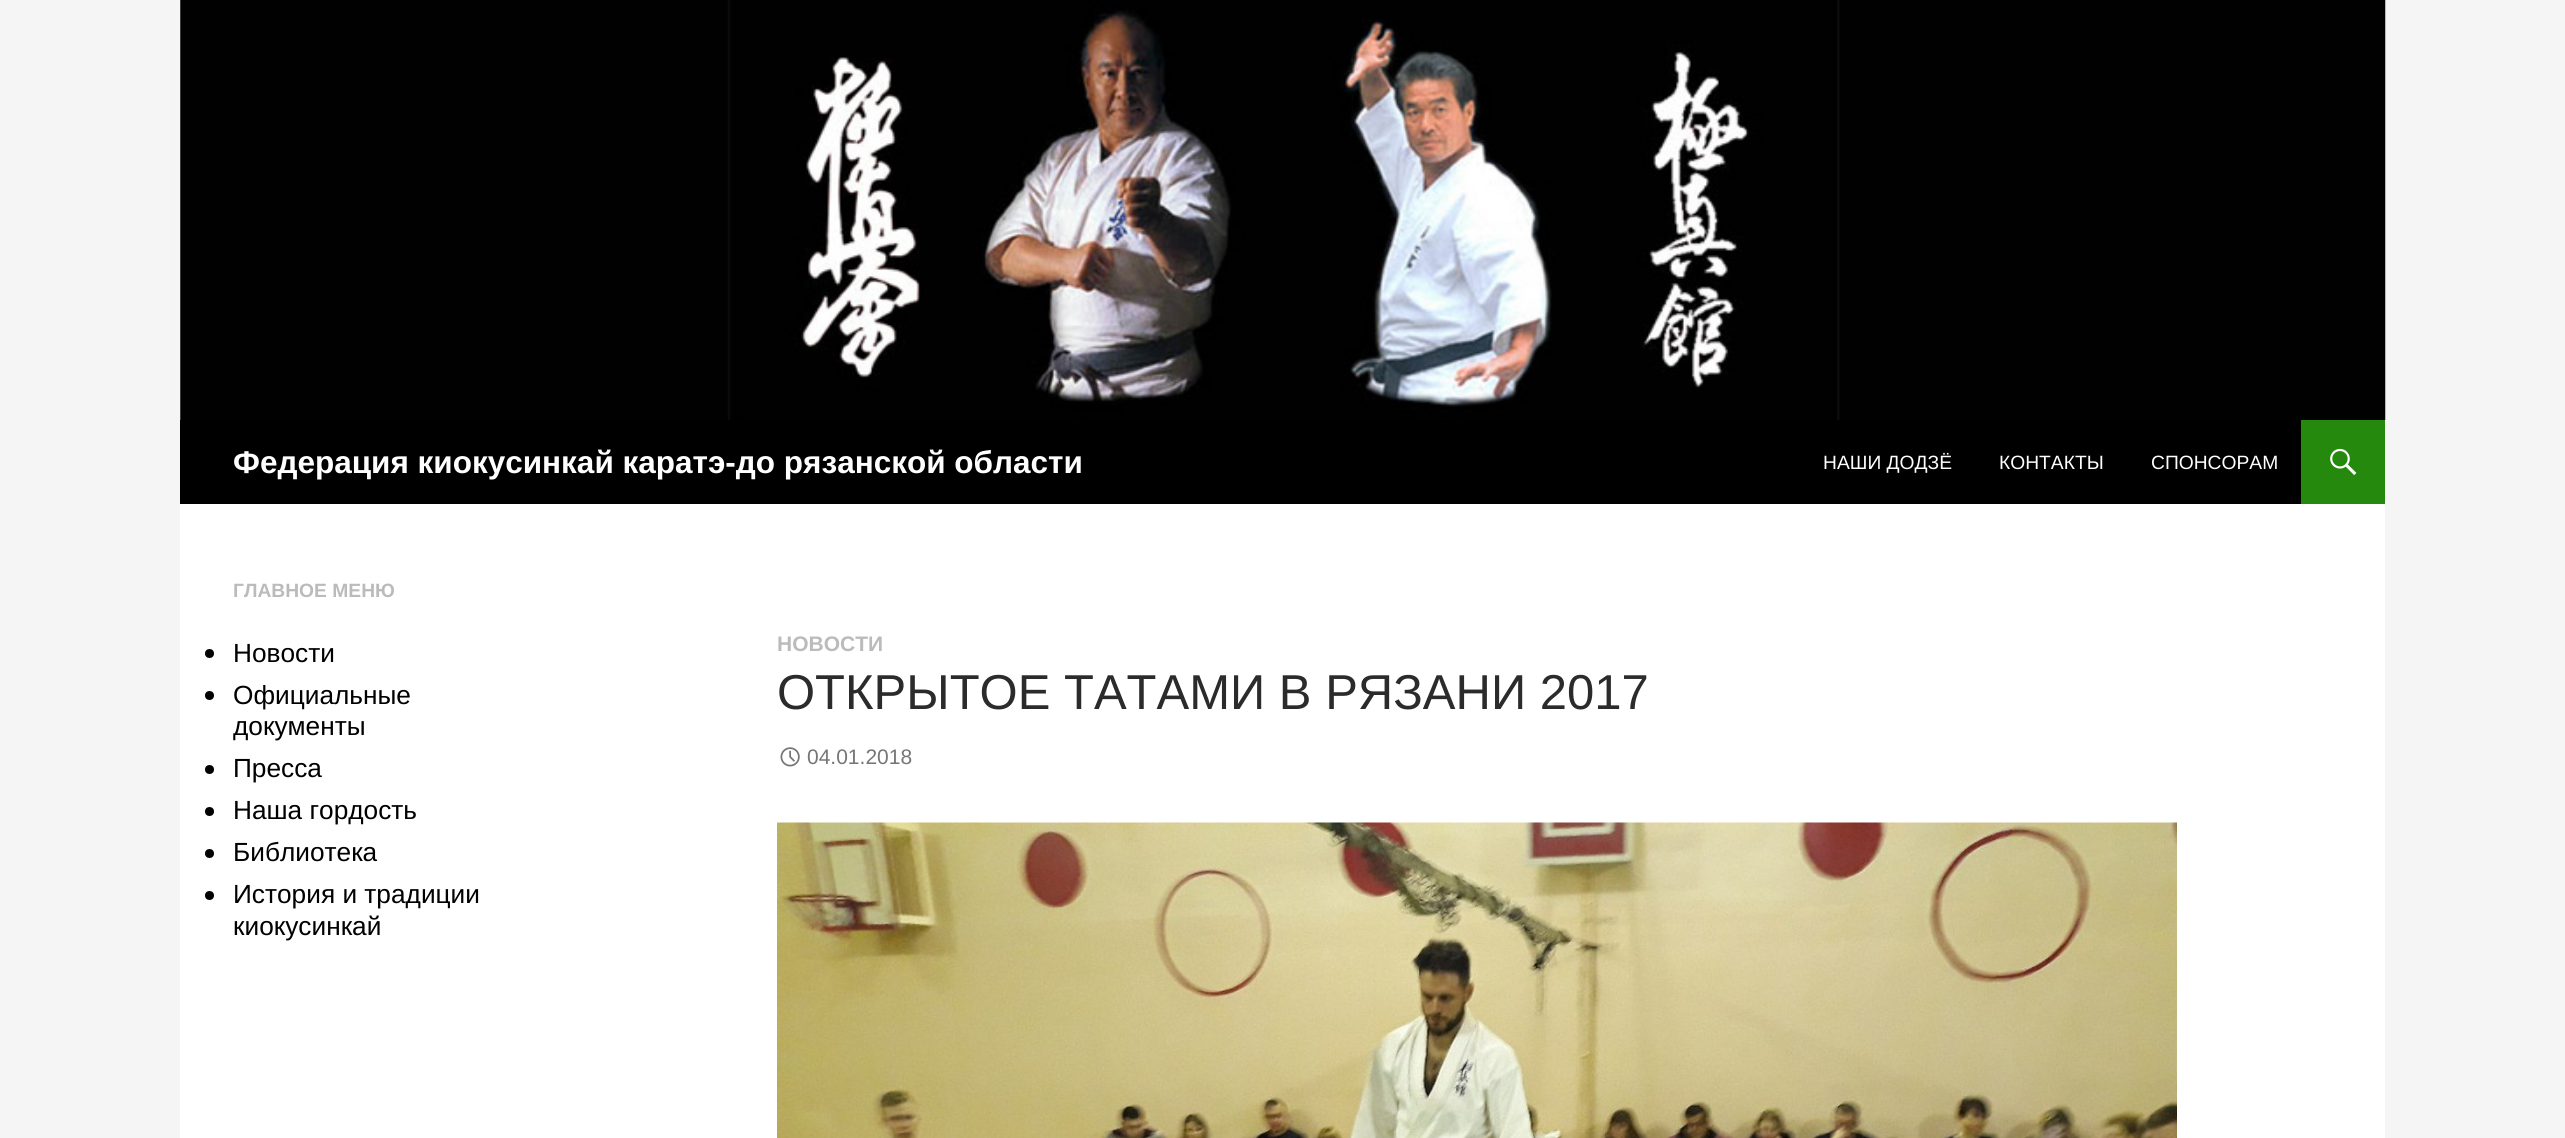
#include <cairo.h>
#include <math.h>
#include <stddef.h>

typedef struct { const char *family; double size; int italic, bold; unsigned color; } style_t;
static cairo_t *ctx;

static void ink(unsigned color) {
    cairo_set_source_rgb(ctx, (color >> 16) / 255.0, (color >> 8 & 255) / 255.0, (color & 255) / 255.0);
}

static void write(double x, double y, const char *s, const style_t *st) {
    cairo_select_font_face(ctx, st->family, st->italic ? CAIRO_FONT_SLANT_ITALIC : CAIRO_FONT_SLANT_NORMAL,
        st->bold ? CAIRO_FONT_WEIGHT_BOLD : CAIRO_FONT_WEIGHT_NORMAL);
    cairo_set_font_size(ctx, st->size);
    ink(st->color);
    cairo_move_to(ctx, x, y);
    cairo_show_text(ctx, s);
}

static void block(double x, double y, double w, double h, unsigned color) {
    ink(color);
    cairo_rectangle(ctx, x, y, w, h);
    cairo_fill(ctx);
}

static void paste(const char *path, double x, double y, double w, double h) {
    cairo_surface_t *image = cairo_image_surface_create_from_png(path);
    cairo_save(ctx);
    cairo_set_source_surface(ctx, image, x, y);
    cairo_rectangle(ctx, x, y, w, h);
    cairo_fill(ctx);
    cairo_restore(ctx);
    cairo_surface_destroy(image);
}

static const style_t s1 = {"Liberation Sans", 31.5, 0, 1, 0xffffff};
static const style_t s2 = {"Liberation Sans", 19.25, 0, 0, 0xffffff};
static const style_t s3 = {"Liberation Sans", 19.25, 0, 1, 0xbbbbbb};
static const style_t s4 = {"Liberation Sans", 26.25, 0, 0, 0x000000};
static const style_t s5 = {"Liberation Sans", 21, 0, 1, 0xbbbbbb};
static const style_t s6 = {"Liberation Sans", 49, 0, 0, 0x2b2b2b};
static const style_t s7 = {"Liberation Sans", 21, 0, 0, 0x767676};

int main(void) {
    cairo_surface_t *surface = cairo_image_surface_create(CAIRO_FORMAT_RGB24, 2565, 1138);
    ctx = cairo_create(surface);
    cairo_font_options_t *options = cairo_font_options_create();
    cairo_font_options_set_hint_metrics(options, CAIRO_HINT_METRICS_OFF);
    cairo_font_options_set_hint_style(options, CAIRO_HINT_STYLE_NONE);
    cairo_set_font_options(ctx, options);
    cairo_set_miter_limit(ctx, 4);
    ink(0xf5f5f5);
    cairo_paint(ctx);
    block(180, 0, 2205, 1138, 0xffffff);
    paste("pic1.png", 180, 0, 2206, 420);
    block(180, 420, 2121, 84, 0x000000);
    write(233, 473, "Федерация киокусинкай каратэ-до рязанской области", &s1);
    write(1823, 469, "НАШИ ДОДЗЁ", &s2);
    write(1999, 469, "КОНТАКТЫ", &s2);
    write(2151, 469, "СПОНСОРАМ", &s2);
    block(2301, 420, 84, 84, 0x24890d);
    paste("pic2.png", 2330, 448, 27, 27);
    write(233, 597, "ГЛАВНОЕ МЕНЮ", &s3);
    ink(0x000000);
    cairo_new_path(ctx);
    cairo_arc(ctx, 209.5, 653.5, 4.5, 0, 2 * M_PI);
    cairo_fill(ctx);
    write(233, 662, "Новости", &s4);
    cairo_new_path(ctx);
    cairo_arc(ctx, 209.5, 695.5, 4.5, 0, 2 * M_PI);
    cairo_fill(ctx);
    write(233, 704, "Официальные", &s4);
    write(233, 735, "документы", &s4);
    cairo_new_path(ctx);
    cairo_arc(ctx, 209.5, 769.5, 4.5, 0, 2 * M_PI);
    cairo_fill(ctx);
    write(233, 777, "Пресса", &s4);
    cairo_new_path(ctx);
    cairo_arc(ctx, 209.5, 811.5, 4.5, 0, 2 * M_PI);
    cairo_fill(ctx);
    write(233, 819, "Наша гордость", &s4);
    cairo_new_path(ctx);
    cairo_arc(ctx, 209.5, 853.5, 4.5, 0, 2 * M_PI);
    cairo_fill(ctx);
    write(233, 861, "Библиотека", &s4);
    cairo_new_path(ctx);
    cairo_arc(ctx, 209.5, 895.5, 4.5, 0, 2 * M_PI);
    cairo_fill(ctx);
    write(233, 903, "История и традиции", &s4);
    write(233, 935, "киокусинкай", &s4);
    write(777, 651, "НОВОСТИ", &s5);
    write(777, 709, "ОТКРЫТОЕ ТАТАМИ В РЯЗАНИ 2017", &s6);
    paste("pic3.png", 780, 747, 20, 20);
    write(807, 764, "04.01.2018", &s7);
    paste("pic4.png", 777, 822, 1400, 316);
    cairo_surface_write_to_png(surface, "screenshot.png");
    cairo_font_options_destroy(options);
    cairo_destroy(ctx);
    cairo_surface_destroy(surface);
    return 0;
}
